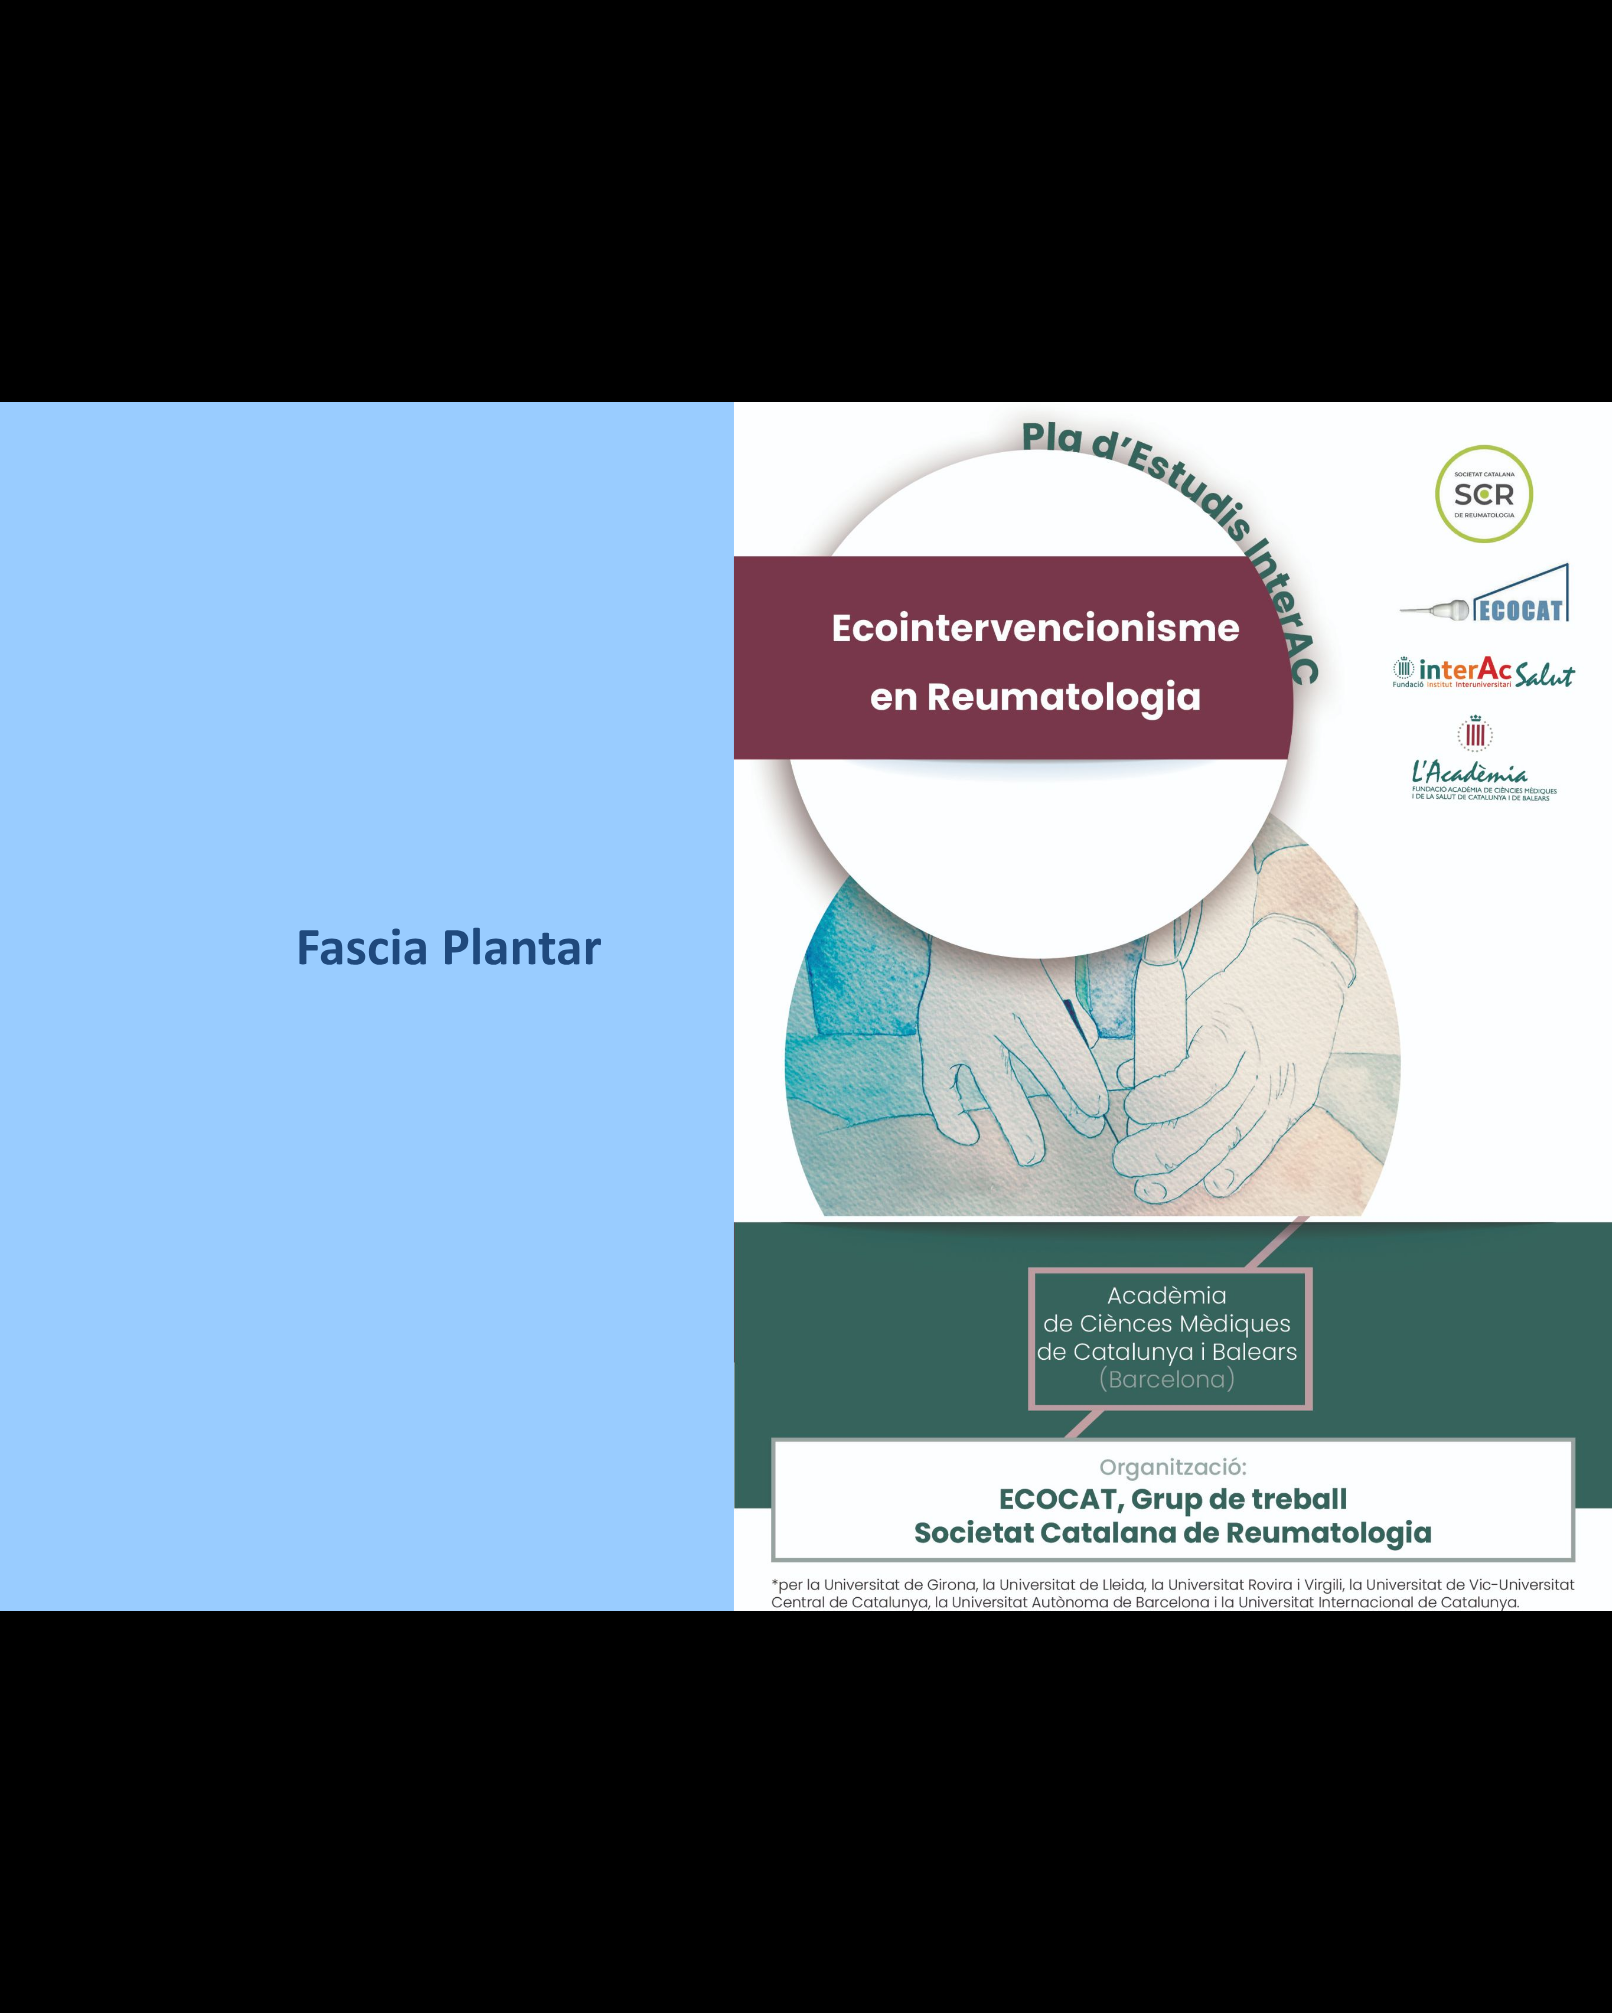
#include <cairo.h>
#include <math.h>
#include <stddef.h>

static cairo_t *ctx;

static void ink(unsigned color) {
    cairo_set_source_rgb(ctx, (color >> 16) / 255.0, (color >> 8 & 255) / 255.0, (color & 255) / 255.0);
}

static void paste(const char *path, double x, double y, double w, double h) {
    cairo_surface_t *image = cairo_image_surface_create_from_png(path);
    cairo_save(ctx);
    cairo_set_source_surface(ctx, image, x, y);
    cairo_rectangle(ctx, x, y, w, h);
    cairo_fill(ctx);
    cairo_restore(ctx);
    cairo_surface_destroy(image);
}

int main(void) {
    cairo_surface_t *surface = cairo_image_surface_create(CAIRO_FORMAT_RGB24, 1612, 2013);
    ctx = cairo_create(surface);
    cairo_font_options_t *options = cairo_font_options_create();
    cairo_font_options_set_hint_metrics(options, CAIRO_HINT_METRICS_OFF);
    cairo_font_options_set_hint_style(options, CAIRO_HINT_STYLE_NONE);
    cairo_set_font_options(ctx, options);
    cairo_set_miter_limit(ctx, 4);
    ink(0x000000);
    cairo_paint(ctx);
    paste("pic1.png", 0, 402, 1612, 1209);
    cairo_surface_write_to_png(surface, "screenshot.png");
    cairo_font_options_destroy(options);
    cairo_destroy(ctx);
    cairo_surface_destroy(surface);
    return 0;
}
